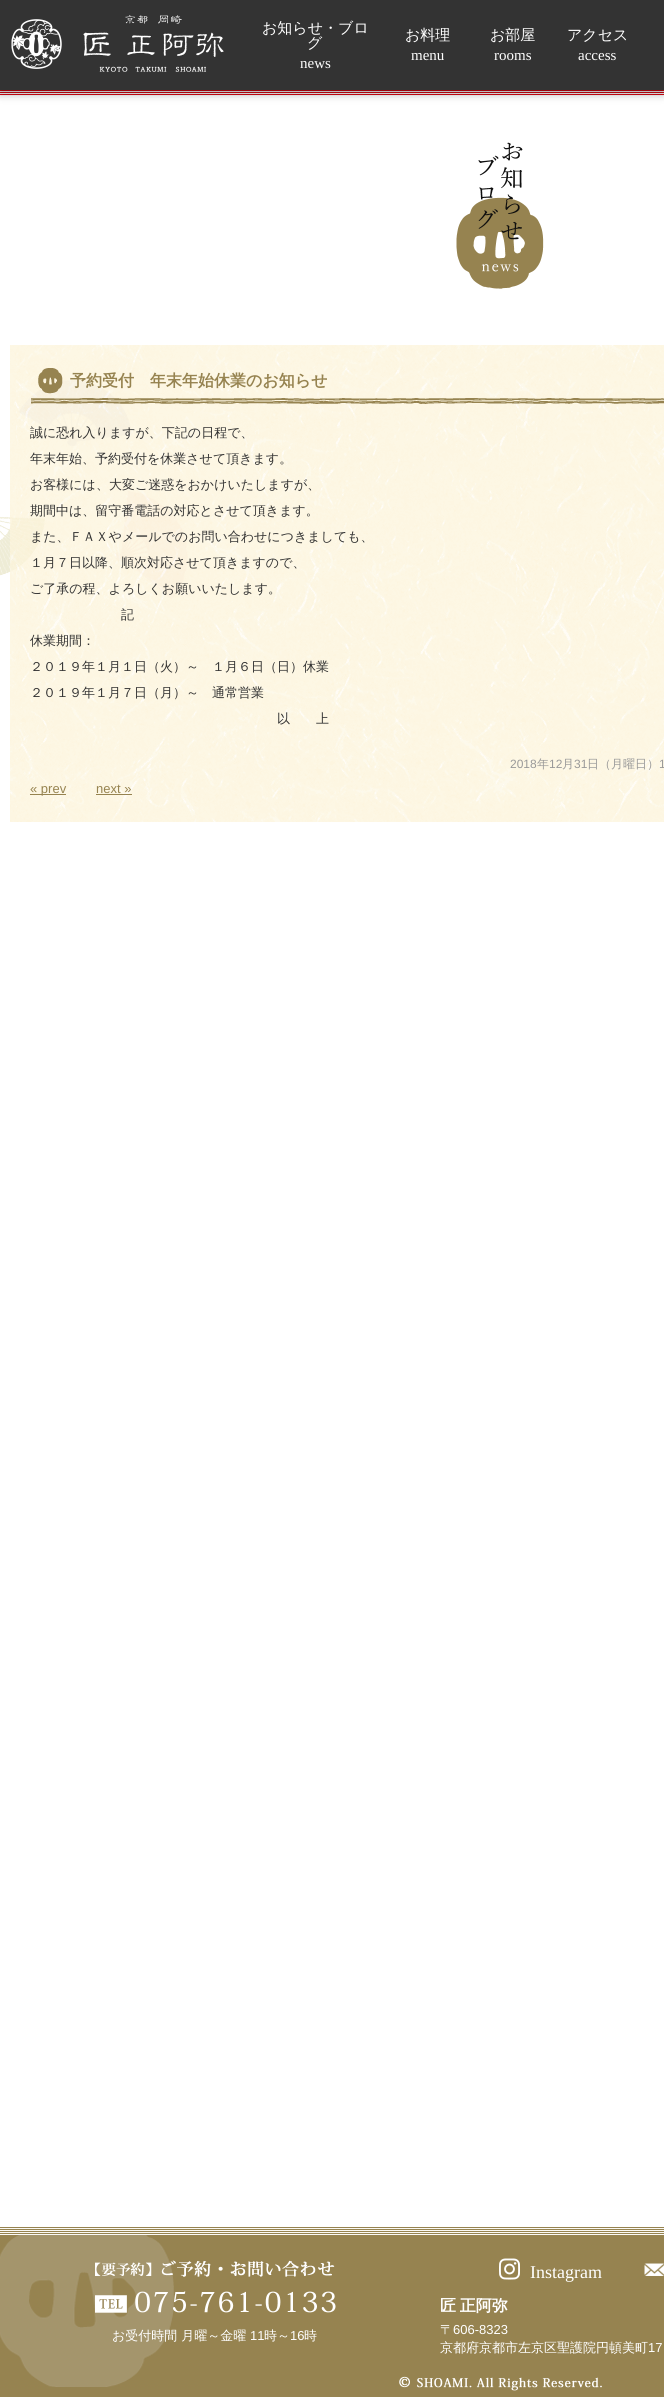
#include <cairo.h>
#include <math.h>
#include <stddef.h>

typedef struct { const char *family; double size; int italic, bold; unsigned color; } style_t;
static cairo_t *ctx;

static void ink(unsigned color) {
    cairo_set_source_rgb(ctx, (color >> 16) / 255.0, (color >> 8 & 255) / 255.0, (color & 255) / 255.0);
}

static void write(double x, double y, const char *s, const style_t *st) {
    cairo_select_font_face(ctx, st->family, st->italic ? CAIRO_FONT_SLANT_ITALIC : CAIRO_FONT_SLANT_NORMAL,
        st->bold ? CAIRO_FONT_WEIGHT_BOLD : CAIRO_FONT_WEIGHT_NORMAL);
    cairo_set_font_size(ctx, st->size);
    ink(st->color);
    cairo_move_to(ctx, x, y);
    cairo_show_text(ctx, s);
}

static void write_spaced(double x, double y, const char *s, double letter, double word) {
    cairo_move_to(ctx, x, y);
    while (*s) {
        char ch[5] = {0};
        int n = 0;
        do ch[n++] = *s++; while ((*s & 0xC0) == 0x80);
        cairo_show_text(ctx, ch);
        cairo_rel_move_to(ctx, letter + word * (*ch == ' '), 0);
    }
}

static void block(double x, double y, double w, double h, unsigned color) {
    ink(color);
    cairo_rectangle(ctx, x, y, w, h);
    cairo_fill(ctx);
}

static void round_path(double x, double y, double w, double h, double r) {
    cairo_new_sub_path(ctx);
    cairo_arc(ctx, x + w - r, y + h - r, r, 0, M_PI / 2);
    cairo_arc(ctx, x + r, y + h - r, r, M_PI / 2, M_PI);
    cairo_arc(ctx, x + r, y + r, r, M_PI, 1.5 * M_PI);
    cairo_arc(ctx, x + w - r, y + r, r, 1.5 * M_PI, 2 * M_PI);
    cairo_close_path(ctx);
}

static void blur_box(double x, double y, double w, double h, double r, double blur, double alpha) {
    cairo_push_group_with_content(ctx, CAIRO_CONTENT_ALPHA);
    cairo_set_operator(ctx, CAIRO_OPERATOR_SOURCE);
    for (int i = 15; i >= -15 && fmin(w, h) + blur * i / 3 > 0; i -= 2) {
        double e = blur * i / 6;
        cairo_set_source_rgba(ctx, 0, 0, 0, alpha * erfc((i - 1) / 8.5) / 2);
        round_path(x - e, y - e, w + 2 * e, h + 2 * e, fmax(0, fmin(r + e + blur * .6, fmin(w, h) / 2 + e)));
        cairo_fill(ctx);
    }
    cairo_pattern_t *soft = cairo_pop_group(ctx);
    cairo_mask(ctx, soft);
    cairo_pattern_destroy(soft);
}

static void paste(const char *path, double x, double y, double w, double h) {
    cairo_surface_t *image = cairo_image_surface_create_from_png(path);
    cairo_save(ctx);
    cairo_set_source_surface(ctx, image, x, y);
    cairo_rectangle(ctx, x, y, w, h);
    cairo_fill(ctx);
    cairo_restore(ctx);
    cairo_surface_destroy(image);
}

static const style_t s1 = {"WenQuanYi Zen Hei Medium", 15, 0, 0, 0xffffff};
static const style_t s2 = {"Liberation Serif", 15, 0, 0, 0xffffff};
static const style_t s3 = {"WenQuanYi Zen Hei", 16, 0, 1, 0x968350};
static const style_t s4 = {"WenQuanYi Zen Hei Medium", 13, 0, 0, 0x333333};
static const style_t s5 = {"Liberation Sans", 12, 0, 0, 0x999999};
static const style_t s6 = {"WenQuanYi Zen Hei Medium", 12, 0, 0, 0x999999};
static const style_t s7 = {"Liberation Sans", 13, 0, 0, 0x968350};
static const style_t s8 = {"WenQuanYi Zen Hei Medium", 13, 0, 0, 0xffffff};
static const style_t s9 = {"Liberation Sans", 13, 0, 0, 0xffffff};
static const style_t s10 = {"Liberation Serif", 18, 0, 0, 0xffffff};

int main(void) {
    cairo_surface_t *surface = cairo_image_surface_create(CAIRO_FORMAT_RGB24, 664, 2398);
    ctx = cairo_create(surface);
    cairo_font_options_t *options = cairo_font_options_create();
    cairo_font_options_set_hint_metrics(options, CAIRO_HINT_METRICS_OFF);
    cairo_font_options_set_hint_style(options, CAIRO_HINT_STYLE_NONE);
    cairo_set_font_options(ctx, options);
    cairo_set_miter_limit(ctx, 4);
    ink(0xffffff);
    cairo_paint(ctx);
    paste("pic2.png", 0, 90, 664, 5);
    ink(0x000000);
    blur_box(0, 2, 664, 90, 0, 5, 0.5);
    block(0, 0, 664, 90, 0x333333);
    paste("pic1.png", 11, 15, 213, 57);
    write(262, 33, "お知らせ・ブロ", &s1);
    write(307, 48, "グ", &s1);
    write(300, 68, "news", &s2);
    write(405, 40, "お料理", &s1);
    write(411, 60, "menu", &s2);
    write(490, 40, "お部屋", &s1);
    write(494, 60, "rooms", &s2);
    write(567, 40, "アクセス", &s1);
    write(578, 60, "access", &s2);
    paste("pic3.png", 456, 142, 88, 147);
    paste("pic4.png", 0, 380, 188, 219);
    paste("pic5.png", 10, 345, 654, 477);
    paste("pic6.png", 31, 368, 633, 36);
    write(70, 386, "予約受付　年末年始休業のお知らせ", &s3);
    write(30, 437, "誠に恐れ入りますが、下記の日程で、", &s4);
    write(30, 463, "年末年始、予約受付を休業させて頂きます。", &s4);
    write(30, 489, "お客様には、大変ご迷惑をおかけいたしますが、", &s4);
    write(30, 515, "期間中は、留守番電話の対応とさせて頂きます。", &s4);
    write(30, 541, "また、ＦＡＸやメールでのお問い合わせにつきましても、", &s4);
    write(30, 567, "１月７日以降、順次対応させて頂きますので、", &s4);
    write(30, 593, "ご了承の程、よろしくお願いいたします。", &s4);
    write(121, 619, "記", &s4);
    write(30, 645, "休業期間：", &s4);
    write(30, 671, "２０１９年１月１日（火）～　１月６日（日）休業", &s4);
    write(30, 697, "２０１９年１月７日（月）～　通常営業", &s4);
    write(277, 723, "以　　上", &s4);
    write(510, 768, "2018", &s5);
    write(537, 768, "年", &s6);
    write(549, 768, "12", &s5);
    write(562, 768, "月", &s6);
    write(574, 768, "31", &s5);
    write(587, 768, "日（月曜日）", &s6);
    write(659, 768, "1", &s5);
    block(30, 794, 36, 1, 0x968350);
    write(30, 793, "« prev", &s7);
    write(96, 793, "next »", &s7);
    block(96, 794, 36, 1, 0x968350);
    block(0, 2227, 664, 170, 0x968350);
    paste("pic7.png", 0, 2228, 664, 159);
    paste("pic8.png", 95, 2260, 241, 53);
    write(112, 2340, "お受付時間 月曜～金曜", &s8);
    write(250, 2340, "11", &s9);
    write(264, 2340, "時～", &s8);
    write(290, 2340, "16", &s9);
    write(304, 2340, "時", &s8);
    paste("pic9.png", 499, 2258, 21, 22);
    write(530, 2278, "Instagram", &s10);
    paste("pic10.png", 644, 2263, 20, 13);
    cairo_select_font_face(ctx, "WenQuanYi Zen Hei", CAIRO_FONT_SLANT_NORMAL, CAIRO_FONT_WEIGHT_BOLD);
    cairo_set_font_size(ctx, 16);
    write_spaced(440, 2311, "匠 正阿弥", 0, -1);
    write(440, 2334, "〒", &s8);
    write(453, 2334, "606-8323", &s9);
    write(440, 2352, "京都府京都市左京区聖護院円頓美町", &s8);
    write(648, 2352, "17", &s9);
    paste("pic11.png", 399, 2376, 203, 15);
    cairo_surface_write_to_png(surface, "screenshot.png");
    cairo_font_options_destroy(options);
    cairo_destroy(ctx);
    cairo_surface_destroy(surface);
    return 0;
}
